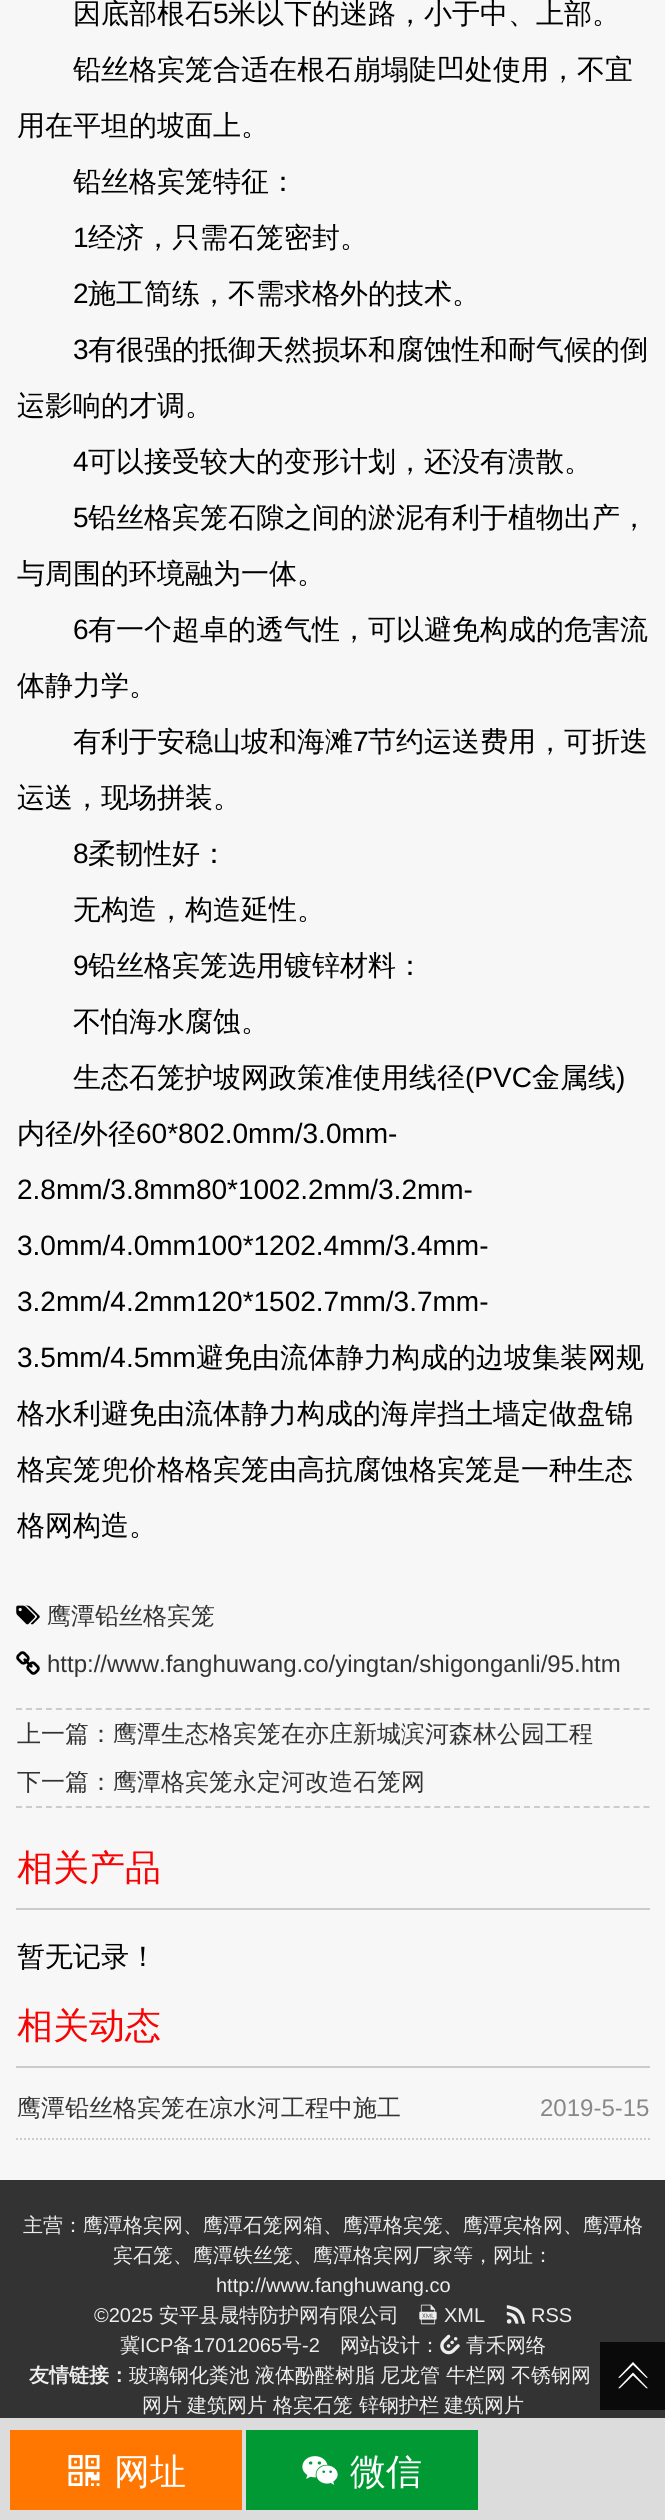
#include <cairo.h>
#include <math.h>
#include <stddef.h>

typedef struct { const char *family; double size; int italic, bold; unsigned color; } style_t;
static cairo_t *ctx;

static void ink(unsigned color) {
    cairo_set_source_rgb(ctx, (color >> 16) / 255.0, (color >> 8 & 255) / 255.0, (color & 255) / 255.0);
}

static void write(double x, double y, const char *s, const style_t *st) {
    cairo_select_font_face(ctx, st->family, st->italic ? CAIRO_FONT_SLANT_ITALIC : CAIRO_FONT_SLANT_NORMAL,
        st->bold ? CAIRO_FONT_WEIGHT_BOLD : CAIRO_FONT_WEIGHT_NORMAL);
    cairo_set_font_size(ctx, st->size);
    ink(st->color);
    cairo_move_to(ctx, x, y);
    cairo_show_text(ctx, s);
}

static void block(double x, double y, double w, double h, unsigned color) {
    ink(color);
    cairo_rectangle(ctx, x, y, w, h);
    cairo_fill(ctx);
}

static void paste(const char *path, double x, double y, double w, double h) {
    cairo_surface_t *image = cairo_image_surface_create_from_png(path);
    cairo_save(ctx);
    cairo_set_source_surface(ctx, image, x, y);
    cairo_rectangle(ctx, x, y, w, h);
    cairo_fill(ctx);
    cairo_restore(ctx);
    cairo_surface_destroy(image);
}

static const style_t s1 = {"WenQuanYi Zen Hei Medium", 28, 0, 0, 0x000000};
static const style_t s2 = {"Liberation Sans", 28, 0, 0, 0x000000};
static const style_t s3 = {"WenQuanYi Zen Hei Medium", 24, 0, 0, 0x333333};
static const style_t s4 = {"Liberation Sans", 24, 0, 0, 0x333333};
static const style_t s5 = {"WenQuanYi Zen Hei Medium", 36, 0, 0, 0xf70303};
static const style_t s6 = {"Liberation Sans", 24, 0, 0, 0x888888};
static const style_t s7 = {"WenQuanYi Zen Hei Medium", 20, 0, 0, 0xeeeeee};
static const style_t s8 = {"Liberation Sans", 20, 0, 0, 0xeeeeee};
static const style_t s9 = {"WenQuanYi Zen Hei", 20, 0, 1, 0xeeeeee};
static const style_t s10 = {"WenQuanYi Zen Hei Medium", 36, 0, 0, 0xffffff};

int main(void) {
    cairo_surface_t *surface = cairo_image_surface_create(CAIRO_FORMAT_RGB24, 665, 2520);
    ctx = cairo_create(surface);
    cairo_font_options_t *options = cairo_font_options_create();
    cairo_font_options_set_hint_metrics(options, CAIRO_HINT_METRICS_OFF);
    cairo_font_options_set_hint_style(options, CAIRO_HINT_STYLE_NONE);
    cairo_set_font_options(ctx, options);
    cairo_set_miter_limit(ctx, 4);
    ink(0xf7f7f7);
    cairo_paint(ctx);
    write(73, 23, "因底部根石", &s1);
    write(213, 23, "5", &s2);
    write(228, 23, "米以下的迷路，小于中、上部。", &s1);
    write(73, 79, "铅丝格宾笼合适在根石崩塌陡凹处使用，不宜", &s1);
    write(17, 135, "用在平坦的坡面上。", &s1);
    write(73, 191, "铅丝格宾笼特征：", &s1);
    write(73, 247, "1", &s2);
    write(88, 247, "经济，只需石笼密封。", &s1);
    write(73, 303, "2", &s2);
    write(88, 303, "施工简练，不需求格外的技术。", &s1);
    write(73, 359, "3", &s2);
    write(88, 359, "有很强的抵御天然损坏和腐蚀性和耐气候的倒", &s1);
    write(17, 415, "运影响的才调。", &s1);
    write(73, 471, "4", &s2);
    write(88, 471, "可以接受较大的变形计划，还没有溃散。", &s1);
    write(73, 527, "5", &s2);
    write(88, 527, "铅丝格宾笼石隙之间的淤泥有利于植物出产，", &s1);
    write(17, 583, "与周围的环境融为一体。", &s1);
    write(73, 639, "6", &s2);
    write(88, 639, "有一个超卓的透气性，可以避免构成的危害流", &s1);
    write(17, 695, "体静力学。", &s1);
    write(73, 751, "有利于安稳山坡和海滩", &s1);
    write(353, 751, "7", &s2);
    write(368, 751, "节约运送费用，可折迭", &s1);
    write(17, 807, "运送，现场拼装。", &s1);
    write(73, 863, "8", &s2);
    write(88, 863, "柔韧性好：", &s1);
    write(73, 919, "无构造，构造延性。", &s1);
    write(73, 975, "9", &s2);
    write(88, 975, "铅丝格宾笼选用镀锌材料：", &s1);
    write(73, 1031, "不怕海水腐蚀。", &s1);
    write(73, 1087, "生态石笼护坡网政策准使用线径", &s1);
    write(465, 1087, "(PVC", &s2);
    write(532, 1087, "金属线", &s1);
    write(616, 1087, ")", &s2);
    write(17, 1143, "内径", &s1);
    write(73, 1143, "/", &s2);
    write(80, 1143, "外径", &s1);
    write(136, 1143, "60*802.0mm/3.0mm-", &s2);
    write(17, 1199, "2.8mm/3.8mm80*1002.2mm/3.2mm-", &s2);
    write(17, 1255, "3.0mm/4.0mm100*1202.4mm/3.4mm-", &s2);
    write(17, 1311, "3.2mm/4.2mm120*1502.7mm/3.7mm-", &s2);
    write(17, 1367, "3.5mm/4.5mm", &s2);
    write(196, 1367, "避免由流体静力构成的边坡集装网规", &s1);
    write(17, 1423, "格水利避免由流体静力构成的海岸挡土墙定做盘锦", &s1);
    write(17, 1479, "格宾笼兜价格格宾笼由高抗腐蚀格宾笼是一种生态", &s1);
    write(17, 1535, "格网构造。", &s1);
    paste("pic1.png", 16, 1605, 24, 20);
    write(47, 1624, "鹰潭铅丝格宾笼", &s3);
    paste("pic2.png", 16, 1651, 24, 24);
    write(47, 1672, "http://www.fanghuwang.co/yingtan/shigonganli/95.htm", &s4);
    cairo_new_path(ctx);
    cairo_move_to(ctx, 16, 1709);
    cairo_line_to(ctx, 650, 1709);
    ink(0xcccccc);
    cairo_set_dash(ctx, (double[]){6, 3.96}, 2, 0);
    cairo_stroke(ctx);
    cairo_new_path(ctx);
    cairo_move_to(ctx, 16, 1807);
    cairo_line_to(ctx, 650, 1807);
    cairo_stroke(ctx);
    write(17, 1742, "上一篇：鹰潭生态格宾笼在亦庄新城滨河森林公园工程", &s3);
    write(17, 1790, "下一篇：鹰潭格宾笼永定河改造石笼网", &s3);
    block(16, 1908, 634, 2, 0xcccccc);
    write(17, 1880, "相关产品", &s5);
    write(17, 1966, "暂无记录！", &s1);
    block(16, 2066, 634, 2, 0xcccccc);
    write(17, 2038, "相关动态", &s5);
    cairo_new_path(ctx);
    cairo_move_to(ctx, 16, 2139);
    cairo_line_to(ctx, 650, 2139);
    ink(0xcccccc);
    cairo_set_dash(ctx, (double[]){2, 2}, 2, 0);
    cairo_stroke(ctx);
    write(17, 2116, "鹰潭铅丝格宾笼在凉水河工程中施工", &s3);
    write(540, 2116, "2019-5-15", &s6);
    block(0, 2180, 665, 238, 0x333333);
    write(23, 2232, "主营：鹰潭格宾网、鹰潭石笼网箱、鹰潭格宾笼、鹰潭宾格网、鹰潭格", &s7);
    write(113, 2262, "宾石笼、鹰潭铁丝笼、鹰潭格宾网厂家等，网址：", &s7);
    write(216, 2292, "http://www.fanghuwang.co", &s8);
    write(94, 2322, "©2025", &s8);
    write(159, 2322, "安平县晟特防护网有限公司", &s7);
    paste("pic3.png", 419, 2304, 18, 21);
    write(444, 2322, "XML", &s8);
    paste("pic4.png", 506, 2305, 20, 19);
    write(531, 2322, "RSS", &s8);
    write(120, 2352, "冀", &s7);
    write(140, 2352, "ICP", &s8);
    write(173, 2352, "备", &s7);
    write(193, 2352, "17012065", &s8);
    write(282, 2352, "号", &s7);
    write(302, 2352, "-2", &s8);
    write(340, 2352, "网站设计：", &s7);
    paste("pic5.png", 440, 2334, 20, 21);
    write(466, 2352, "青禾网络", &s7);
    write(29, 2382, "友情链接：", &s9);
    write(129, 2382, "玻璃钢化粪池", &s7);
    write(255, 2382, "液体酚醛树脂", &s7);
    write(380, 2382, "尼龙管", &s7);
    write(446, 2382, "牛栏网", &s7);
    write(511, 2382, "不锈钢网", &s7);
    write(142, 2412, "网片", &s7);
    write(187, 2412, "建筑网片", &s7);
    write(273, 2412, "格宾石笼", &s7);
    write(359, 2412, "锌钢护栏", &s7);
    write(444, 2412, "建筑网片", &s7);
    block(0, 2418, 665, 102, 0xdcdcdc);
    block(10, 2430, 232, 80, 0xff7700);
    paste("pic6.png", 68, 2455, 32, 31);
    write(114, 2484, "网址", &s10);
    block(246, 2430, 232, 80, 0x009933);
    paste("pic7.png", 302, 2456, 36, 29);
    write(350, 2484, "微信", &s10);
    cairo_set_source_rgba(ctx, 0, 0, 0, 0.8);
    cairo_rectangle(ctx, 600, 2342, 65, 68);
    cairo_fill(ctx);
    paste("pic8.png", 618, 2362, 30, 27);
    cairo_surface_write_to_png(surface, "screenshot.png");
    cairo_font_options_destroy(options);
    cairo_destroy(ctx);
    cairo_surface_destroy(surface);
    return 0;
}
